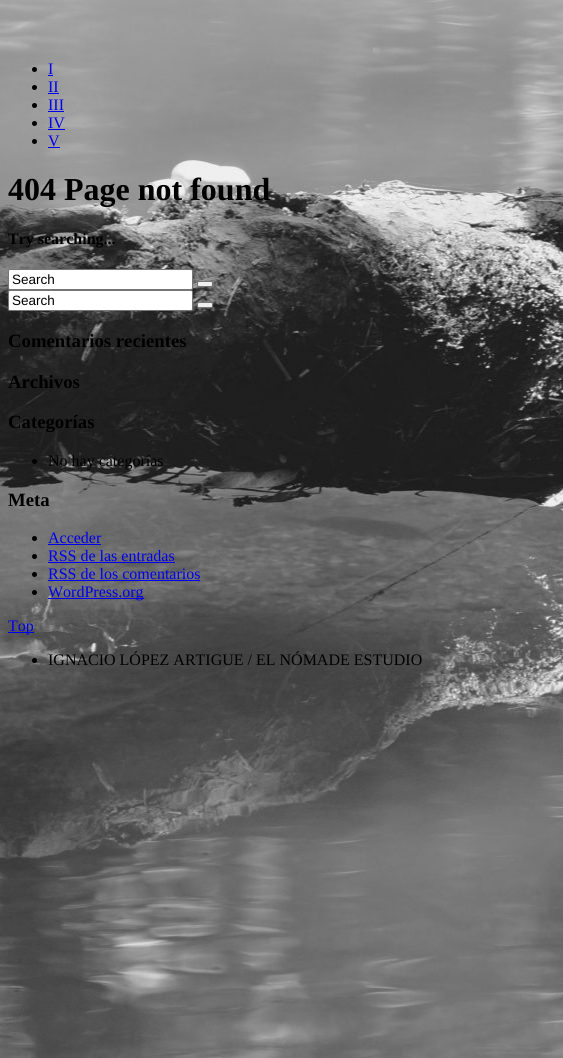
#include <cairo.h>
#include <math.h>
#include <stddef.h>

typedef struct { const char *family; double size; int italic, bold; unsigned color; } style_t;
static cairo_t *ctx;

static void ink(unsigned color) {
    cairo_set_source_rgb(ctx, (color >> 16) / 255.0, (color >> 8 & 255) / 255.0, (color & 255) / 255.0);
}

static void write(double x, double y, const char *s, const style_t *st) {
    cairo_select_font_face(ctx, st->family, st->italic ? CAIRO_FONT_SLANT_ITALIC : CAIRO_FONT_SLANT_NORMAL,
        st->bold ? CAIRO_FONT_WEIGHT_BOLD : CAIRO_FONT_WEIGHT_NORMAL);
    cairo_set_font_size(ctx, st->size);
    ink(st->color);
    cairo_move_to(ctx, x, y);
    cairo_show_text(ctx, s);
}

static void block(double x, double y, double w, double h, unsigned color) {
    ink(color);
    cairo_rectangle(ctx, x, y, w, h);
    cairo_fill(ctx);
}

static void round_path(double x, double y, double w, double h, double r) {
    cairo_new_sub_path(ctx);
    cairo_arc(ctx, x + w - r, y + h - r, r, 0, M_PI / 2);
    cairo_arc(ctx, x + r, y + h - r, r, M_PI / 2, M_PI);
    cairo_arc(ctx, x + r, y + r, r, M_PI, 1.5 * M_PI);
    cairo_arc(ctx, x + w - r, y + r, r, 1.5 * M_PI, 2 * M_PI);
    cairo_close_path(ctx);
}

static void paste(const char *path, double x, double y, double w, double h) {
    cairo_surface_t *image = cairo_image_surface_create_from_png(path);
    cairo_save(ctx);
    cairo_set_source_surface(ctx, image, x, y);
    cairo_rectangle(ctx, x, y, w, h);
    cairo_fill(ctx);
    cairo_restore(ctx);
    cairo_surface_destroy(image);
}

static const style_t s1 = {"Liberation Serif", 16, 0, 0, 0x0000ee};
static const style_t s2 = {"Liberation Serif", 32, 0, 1, 0x000000};
static const style_t s3 = {"Liberation Serif", 16, 0, 1, 0x000000};
static const style_t s4 = {"Liberation Sans", 13.5, 0, 0, 0x000000};
static const style_t s5 = {"Liberation Serif", 18.75, 0, 1, 0x000000};
static const style_t s6 = {"Liberation Serif", 16, 0, 0, 0x000000};

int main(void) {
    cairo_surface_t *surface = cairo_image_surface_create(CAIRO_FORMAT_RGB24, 563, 1058);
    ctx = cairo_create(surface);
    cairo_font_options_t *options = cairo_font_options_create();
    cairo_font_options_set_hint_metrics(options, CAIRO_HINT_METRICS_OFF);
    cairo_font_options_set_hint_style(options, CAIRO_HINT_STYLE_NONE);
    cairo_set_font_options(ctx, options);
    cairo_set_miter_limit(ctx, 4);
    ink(0xffffff);
    cairo_paint(ctx);
    paste("pic1.png", 0, 0, 563, 1058);
    ink(0x000000);
    cairo_arc(ctx, 34.5, 69.5, 2.5, 0, 2 * M_PI);
    cairo_fill(ctx);
    write(48, 74, "I", &s1);
    block(48, 75, 5, 1, 0x0000ee);
    ink(0x000000);
    cairo_new_path(ctx);
    cairo_arc(ctx, 34.5, 87.5, 2.5, 0, 2 * M_PI);
    cairo_fill(ctx);
    write(48, 92, "II", &s1);
    block(48, 93, 11, 1, 0x0000ee);
    ink(0x000000);
    cairo_new_path(ctx);
    cairo_arc(ctx, 34.5, 105.5, 2.5, 0, 2 * M_PI);
    cairo_fill(ctx);
    write(48, 110, "III", &s1);
    block(48, 111, 16, 1, 0x0000ee);
    ink(0x000000);
    cairo_new_path(ctx);
    cairo_arc(ctx, 34.5, 123.5, 2.5, 0, 2 * M_PI);
    cairo_fill(ctx);
    write(48, 128, "IV", &s1);
    block(48, 129, 17, 1, 0x0000ee);
    ink(0x000000);
    cairo_new_path(ctx);
    cairo_arc(ctx, 34.5, 141.5, 2.5, 0, 2 * M_PI);
    cairo_fill(ctx);
    write(48, 146, "V", &s1);
    block(48, 147, 12, 1, 0x0000ee);
    write(8, 200, "404 Page not found", &s2);
    write(8, 244, "Try searching...", &s3);
    ink(0xffffff);
    round_path(8.5, 269.5, 184, 20, 1.5);
    cairo_fill_preserve(ctx);
    ink(0x767676);
    cairo_set_line_width(ctx, 1);
    cairo_stroke(ctx);
    write(12, 284, "Search", &s4);
    ink(0xefefef);
    round_path(197.5, 281.5, 15, 5, 1.5);
    cairo_fill_preserve(ctx);
    ink(0x767676);
    cairo_stroke(ctx);
    ink(0xffffff);
    round_path(8.5, 290.5, 184, 20, 1.5);
    cairo_fill_preserve(ctx);
    ink(0x767676);
    cairo_stroke(ctx);
    write(12, 305, "Search", &s4);
    ink(0xefefef);
    round_path(197.5, 302.5, 15, 5, 1.5);
    cairo_fill_preserve(ctx);
    ink(0x767676);
    cairo_stroke(ctx);
    write(8, 347, "Comentarios recientes", &s5);
    write(8, 388, "Archivos", &s5);
    write(8, 428, "Categorías", &s5);
    cairo_new_path(ctx);
    cairo_arc(ctx, 34.5, 461.5, 2.5, 0, 2 * M_PI);
    cairo_fill(ctx);
    write(48, 466, "No hay categorías", &s6);
    write(8, 506, "Meta", &s5);
    cairo_new_path(ctx);
    cairo_arc(ctx, 34.5, 538.5, 2.5, 0, 2 * M_PI);
    cairo_fill(ctx);
    write(48, 543, "Acceder", &s1);
    block(48, 544, 53, 1, 0x0000ee);
    ink(0x000000);
    cairo_new_path(ctx);
    cairo_arc(ctx, 34.5, 556.5, 2.5, 0, 2 * M_PI);
    cairo_fill(ctx);
    write(48, 561, "RSS de las entradas", &s1);
    block(48, 562, 127, 1, 0x0000ee);
    ink(0x000000);
    cairo_new_path(ctx);
    cairo_arc(ctx, 34.5, 574.5, 2.5, 0, 2 * M_PI);
    cairo_fill(ctx);
    write(48, 579, "RSS de los comentarios", &s1);
    block(48, 580, 152, 1, 0x0000ee);
    ink(0x000000);
    cairo_new_path(ctx);
    cairo_arc(ctx, 34.5, 592.5, 2.5, 0, 2 * M_PI);
    cairo_fill(ctx);
    block(48, 598, 96, 1, 0x0000ee);
    write(48, 597, "WordPress.org", &s1);
    block(8, 632, 26, 1, 0x0000ee);
    write(8, 631, "Top", &s1);
    ink(0x000000);
    cairo_new_path(ctx);
    cairo_arc(ctx, 34.5, 660.5, 2.5, 0, 2 * M_PI);
    cairo_fill(ctx);
    write(48, 665, "IGNACIO LÓPEZ ARTIGUE / EL NÓMADE ESTUDIO", &s6);
    cairo_surface_write_to_png(surface, "screenshot.png");
    cairo_font_options_destroy(options);
    cairo_destroy(ctx);
    cairo_surface_destroy(surface);
    return 0;
}
